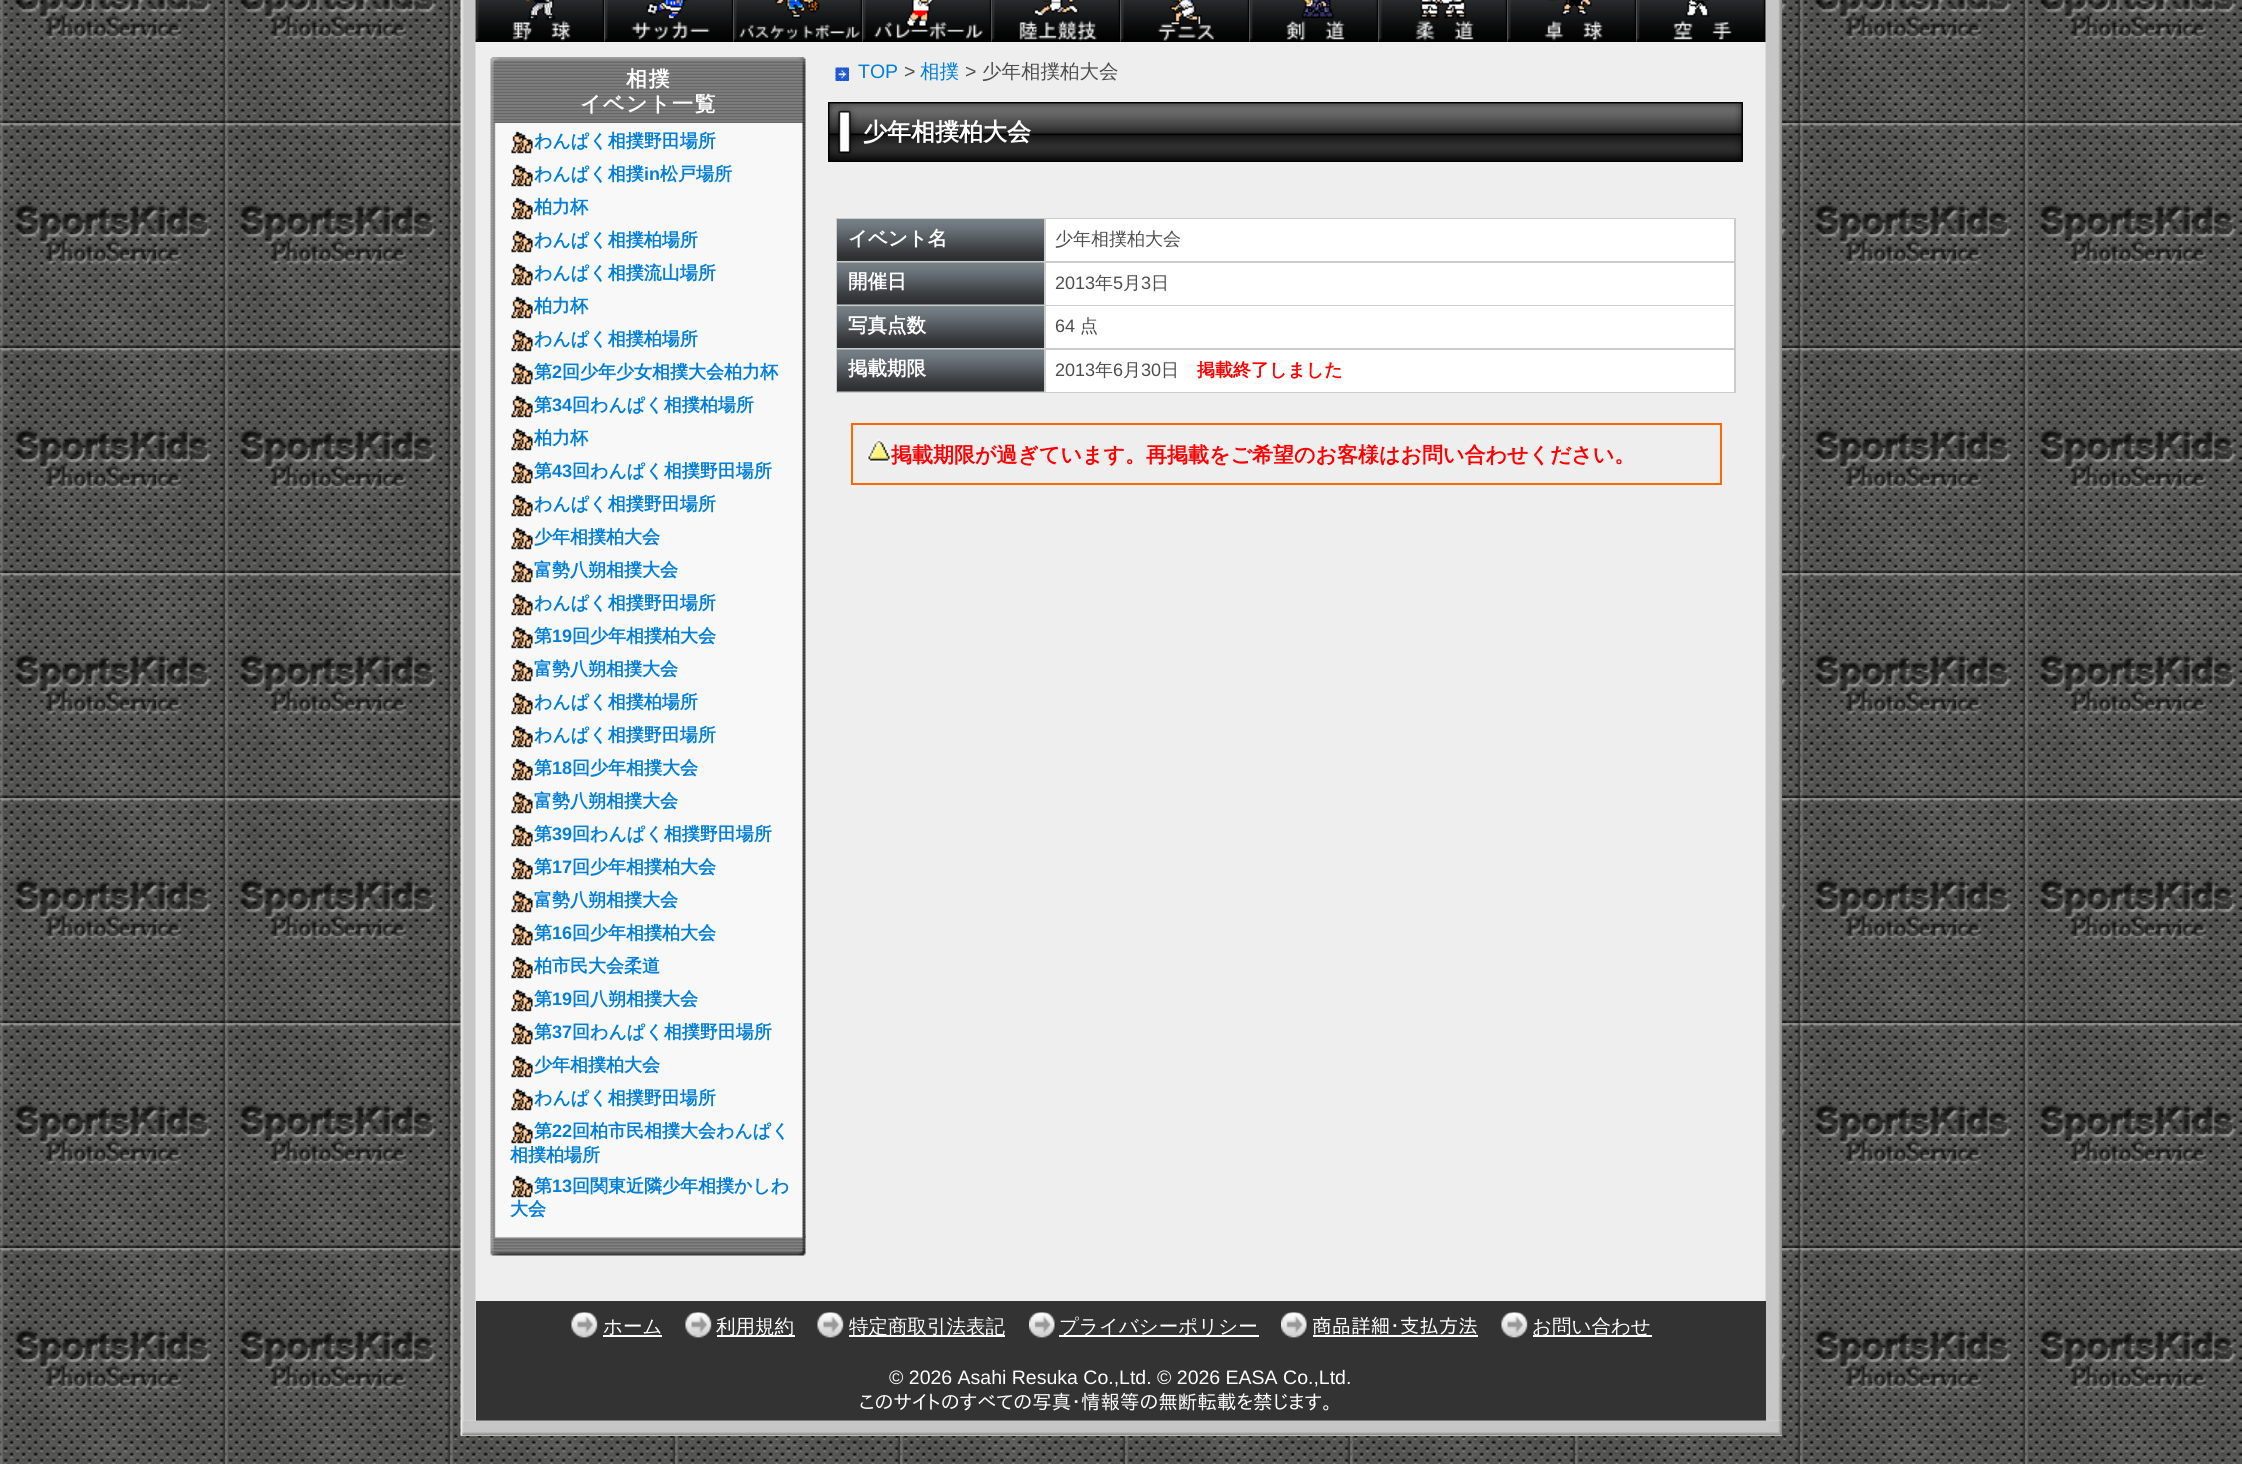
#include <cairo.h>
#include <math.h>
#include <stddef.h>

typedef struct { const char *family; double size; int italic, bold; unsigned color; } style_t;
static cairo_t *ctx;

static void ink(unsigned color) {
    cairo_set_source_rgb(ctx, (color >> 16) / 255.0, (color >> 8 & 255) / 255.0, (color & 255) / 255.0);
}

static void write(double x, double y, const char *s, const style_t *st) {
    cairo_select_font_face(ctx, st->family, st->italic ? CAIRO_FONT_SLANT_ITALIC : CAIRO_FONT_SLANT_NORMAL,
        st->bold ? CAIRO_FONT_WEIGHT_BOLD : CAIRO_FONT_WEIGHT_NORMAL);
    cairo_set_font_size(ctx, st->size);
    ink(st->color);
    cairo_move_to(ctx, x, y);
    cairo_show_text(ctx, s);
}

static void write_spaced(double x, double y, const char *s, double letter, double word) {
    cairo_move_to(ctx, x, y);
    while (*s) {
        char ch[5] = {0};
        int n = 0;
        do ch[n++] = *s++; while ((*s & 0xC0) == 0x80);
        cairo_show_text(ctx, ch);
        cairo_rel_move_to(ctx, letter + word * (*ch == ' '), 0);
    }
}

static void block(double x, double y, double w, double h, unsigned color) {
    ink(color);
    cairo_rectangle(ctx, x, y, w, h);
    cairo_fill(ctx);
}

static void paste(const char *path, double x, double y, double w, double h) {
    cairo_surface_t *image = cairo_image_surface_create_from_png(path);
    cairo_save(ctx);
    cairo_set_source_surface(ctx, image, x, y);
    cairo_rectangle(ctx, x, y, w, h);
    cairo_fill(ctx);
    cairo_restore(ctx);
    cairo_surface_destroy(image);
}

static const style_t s1 = {"WenQuanYi Zen Hei", 18, 0, 1, 0x007ed9};
static const style_t s2 = {"Liberation Sans", 18, 0, 1, 0x007ed9};
static const style_t s3 = {"Liberation Sans", 19.5, 0, 0, 0x007ed9};
static const style_t s4 = {"Liberation Sans", 19.5, 0, 0, 0x4d4d4d};
static const style_t s5 = {"WenQuanYi Zen Hei Medium", 19.5, 0, 0, 0x007ed9};
static const style_t s6 = {"WenQuanYi Zen Hei Medium", 19.5, 0, 0, 0x4d4d4d};
static const style_t s7 = {"WenQuanYi Zen Hei", 24, 0, 1, 0xffffff};
static const style_t s8 = {"WenQuanYi Zen Hei", 19.5, 0, 1, 0xffffff};
static const style_t s9 = {"WenQuanYi Zen Hei Medium", 18, 0, 0, 0x4d4d4d};
static const style_t s10 = {"Liberation Sans", 18, 0, 0, 0x4d4d4d};
static const style_t s11 = {"WenQuanYi Zen Hei", 18, 0, 1, 0xff0000};
static const style_t s12 = {"WenQuanYi Zen Hei", 21, 0, 1, 0xff0000};
static const style_t s13 = {"WenQuanYi Zen Hei Medium", 19.5, 0, 0, 0xffffff};
static const style_t s14 = {"IPAPGothic", 19.5, 0, 0, 0xffffff};
static const style_t s15 = {"Liberation Sans", 19.5, 0, 0, 0xffffff};

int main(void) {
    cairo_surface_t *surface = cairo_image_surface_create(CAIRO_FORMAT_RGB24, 2242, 1464);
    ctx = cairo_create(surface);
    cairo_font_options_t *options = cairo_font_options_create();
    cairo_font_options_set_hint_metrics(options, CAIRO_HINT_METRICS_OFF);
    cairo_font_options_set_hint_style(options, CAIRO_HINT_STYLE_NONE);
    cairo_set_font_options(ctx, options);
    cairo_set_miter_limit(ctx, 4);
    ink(0xffffff);
    cairo_paint(ctx);
    paste("pic1.png", 0, 0, 2242, 1464);
    block(461, 0, 1321, 1436, 0xeeeeee);
    paste("pic2.png", 460, 0, 1322, 1421);
    paste("pic3.png", 475, 0, 130, 42);
    paste("pic4.png", 604, 0, 130, 42);
    paste("pic5.png", 733, 0, 130, 42);
    paste("pic6.png", 862, 0, 130, 42);
    paste("pic7.png", 991, 0, 130, 42);
    paste("pic8.png", 1120, 0, 130, 42);
    paste("pic9.png", 1249, 0, 130, 42);
    paste("pic10.png", 1378, 0, 130, 42);
    paste("pic11.png", 1507, 0, 130, 42);
    paste("pic12.png", 1636, 0, 130, 42);
    paste("pic13.png", 490, 1236, 316, 20);
    paste("pic14.png", 490, 57, 316, 66);
    cairo_select_font_face(ctx, "WenQuanYi Zen Hei", CAIRO_FONT_SLANT_NORMAL, CAIRO_FONT_WEIGHT_BOLD);
    cairo_set_font_size(ctx, 21);
    ink(0xffffff);
    write_spaced(626, 86, "相撲", 1.5, 0);
    write_spaced(580, 111, "イベント一覧", 1.5, 0);
    paste("pic15.png", 490, 123, 316, 1115);
    paste("pic16.png", 511, 131, 22, 23);
    write(534, 147, "わんぱく相撲野田場所", &s1);
    paste("pic16.png", 511, 164, 22, 23);
    write(534, 180, "わんぱく相撲", &s1);
    write(644, 180, "in", &s2);
    write(660, 180, "松戸場所", &s1);
    paste("pic16.png", 511, 197, 22, 23);
    write(534, 213, "柏力杯", &s1);
    paste("pic16.png", 511, 230, 22, 23);
    write(534, 246, "わんぱく相撲柏場所", &s1);
    paste("pic16.png", 511, 263, 22, 23);
    write(534, 279, "わんぱく相撲流山場所", &s1);
    paste("pic16.png", 511, 296, 22, 23);
    write(534, 312, "柏力杯", &s1);
    paste("pic16.png", 511, 329, 22, 23);
    write(534, 345, "わんぱく相撲柏場所", &s1);
    paste("pic16.png", 511, 362, 22, 23);
    write(534, 378, "第", &s1);
    write(552, 378, "2", &s2);
    write(562, 378, "回少年少女相撲大会柏力杯", &s1);
    paste("pic16.png", 511, 395, 22, 23);
    write(534, 411, "第", &s1);
    write(552, 411, "34", &s2);
    write(572, 411, "回わんぱく相撲柏場所", &s1);
    paste("pic16.png", 511, 428, 22, 23);
    write(534, 444, "柏力杯", &s1);
    paste("pic16.png", 511, 461, 22, 23);
    write(534, 477, "第", &s1);
    write(552, 477, "43", &s2);
    write(572, 477, "回わんぱく相撲野田場所", &s1);
    paste("pic16.png", 511, 494, 22, 23);
    write(534, 510, "わんぱく相撲野田場所", &s1);
    paste("pic16.png", 511, 527, 22, 23);
    write(534, 543, "少年相撲柏大会", &s1);
    paste("pic16.png", 511, 560, 22, 23);
    write(534, 576, "富勢八朔相撲大会", &s1);
    paste("pic16.png", 511, 593, 22, 23);
    write(534, 609, "わんぱく相撲野田場所", &s1);
    paste("pic16.png", 511, 626, 22, 23);
    write(534, 642, "第", &s1);
    write(552, 642, "19", &s2);
    write(572, 642, "回少年相撲柏大会", &s1);
    paste("pic16.png", 511, 659, 22, 23);
    write(534, 675, "富勢八朔相撲大会", &s1);
    paste("pic16.png", 511, 692, 22, 23);
    write(534, 708, "わんぱく相撲柏場所", &s1);
    paste("pic16.png", 511, 725, 22, 23);
    write(534, 741, "わんぱく相撲野田場所", &s1);
    paste("pic16.png", 511, 758, 22, 23);
    write(534, 774, "第", &s1);
    write(552, 774, "18", &s2);
    write(572, 774, "回少年相撲大会", &s1);
    paste("pic16.png", 511, 791, 22, 23);
    write(534, 807, "富勢八朔相撲大会", &s1);
    paste("pic16.png", 511, 824, 22, 23);
    write(534, 840, "第", &s1);
    write(552, 840, "39", &s2);
    write(572, 840, "回わんぱく相撲野田場所", &s1);
    paste("pic16.png", 511, 857, 22, 23);
    write(534, 873, "第", &s1);
    write(552, 873, "17", &s2);
    write(572, 873, "回少年相撲柏大会", &s1);
    paste("pic16.png", 511, 890, 22, 23);
    write(534, 906, "富勢八朔相撲大会", &s1);
    paste("pic16.png", 511, 923, 22, 23);
    write(534, 939, "第", &s1);
    write(552, 939, "16", &s2);
    write(572, 939, "回少年相撲柏大会", &s1);
    paste("pic16.png", 511, 956, 22, 23);
    write(534, 972, "柏市民大会柔道", &s1);
    paste("pic16.png", 511, 989, 22, 23);
    write(534, 1005, "第", &s1);
    write(552, 1005, "19", &s2);
    write(572, 1005, "回八朔相撲大会", &s1);
    paste("pic16.png", 511, 1022, 22, 23);
    write(534, 1038, "第", &s1);
    write(552, 1038, "37", &s2);
    write(572, 1038, "回わんぱく相撲野田場所", &s1);
    paste("pic16.png", 511, 1055, 22, 23);
    write(534, 1071, "少年相撲柏大会", &s1);
    paste("pic16.png", 511, 1088, 22, 23);
    write(534, 1104, "わんぱく相撲野田場所", &s1);
    paste("pic16.png", 511, 1121, 22, 23);
    write(534, 1137, "第", &s1);
    write(552, 1137, "22", &s2);
    write(572, 1137, "回柏市民相撲大会わんぱく", &s1);
    write(510, 1161, "相撲柏場所", &s1);
    paste("pic16.png", 511, 1175, 22, 23);
    write(534, 1192, "第", &s1);
    write(552, 1192, "13", &s2);
    write(572, 1192, "回関東近隣少年相撲かしわ", &s1);
    write(510, 1215, "大会", &s1);
    paste("pic17.png", 835, 67, 14, 14);
    write(858, 78, "TOP", &s3);
    write(904, 78, ">", &s4);
    write(920, 78, "相撲", &s5);
    write(965, 78, ">", &s4);
    write(982, 78, "少年相撲柏大会", &s6);
    paste("pic18.png", 828, 102, 915, 60);
    write(863, 140, "少年相撲柏大会", &s7);
    block(836, 218, 900, 175, 0xcccccc);
    paste("pic19.png", 837, 219, 207, 42);
    write(848, 245, "イベント名", &s8);
    block(1046, 219, 688, 42, 0xffffff);
    write(1055, 245, "少年相撲柏大会", &s9);
    paste("pic20.png", 837, 262, 207, 43);
    write(848, 288, "開催日", &s8);
    block(1046, 263, 688, 42, 0xffffff);
    write(1055, 289, "2013", &s10);
    write(1095, 289, "年", &s9);
    write(1113, 289, "5", &s10);
    write(1123, 289, "月", &s9);
    write(1141, 289, "3", &s10);
    write(1151, 289, "日", &s9);
    paste("pic19.png", 837, 306, 207, 42);
    write(848, 332, "写真点数", &s8);
    block(1046, 306, 688, 42, 0xffffff);
    write(1055, 332, "64", &s10);
    write(1080, 332, "点", &s9);
    paste("pic20.png", 837, 349, 207, 43);
    write(848, 375, "掲載期限", &s8);
    block(1046, 350, 688, 42, 0xffffff);
    write(1055, 376, "2013", &s10);
    write(1095, 376, "年", &s9);
    write(1113, 376, "6", &s10);
    write(1123, 376, "月", &s9);
    write(1141, 376, "30", &s10);
    write(1161, 376, "日", &s9);
    write(1197, 376, "掲載終了しました", &s11);
    cairo_rectangle(ctx, 852, 424, 869, 60);
    ink(0xff6600);
    cairo_stroke(ctx);
    paste("pic21.png", 867, 439, 24, 23);
    write(891, 462, "掲載期限が過ぎています。再掲載をご希望のお客様はお問い合わせください。", &s12);
    block(476, 1301, 1290, 120, 0x333333);
    paste("pic22.png", 571, 1312, 27, 26);
    write(603, 1333, "ホーム", &s13);
    block(603, 1335, 59, 2, 0xffffff);
    paste("pic22.png", 685, 1312, 27, 26);
    block(717, 1335, 78, 2, 0xffffff);
    write(716, 1333, "利用規約", &s13);
    paste("pic23.png", 817, 1312, 27, 26);
    block(849, 1335, 156, 2, 0xffffff);
    write(849, 1333, "特定商取引法表記", &s13);
    paste("pic24.png", 1029, 1312, 27, 26);
    block(1059, 1335, 200, 2, 0xffffff);
    write(1059, 1333, "プライバシーポリシー", &s13);
    paste("pic25.png", 1281, 1312, 27, 26);
    write(1312, 1333, "商品詳細･支払方法", &s14);
    block(1313, 1335, 165, 2, 0xffffff);
    paste("pic22.png", 1501, 1312, 27, 26);
    block(1533, 1335, 119, 2, 0xffffff);
    write(1532, 1333, "お問い合わせ", &s13);
    write(889, 1384, "© 2026 Asahi Resuka Co.,Ltd. © 2026 EASA Co.,Ltd.", &s15);
    write(859, 1409, "このサイトのすべての写真･情報等の無断転載を禁じます。", &s14);
    paste("pic26.png", 460, 1420, 1322, 16);
    cairo_surface_write_to_png(surface, "screenshot.png");
    cairo_font_options_destroy(options);
    cairo_destroy(ctx);
    cairo_surface_destroy(surface);
    return 0;
}
